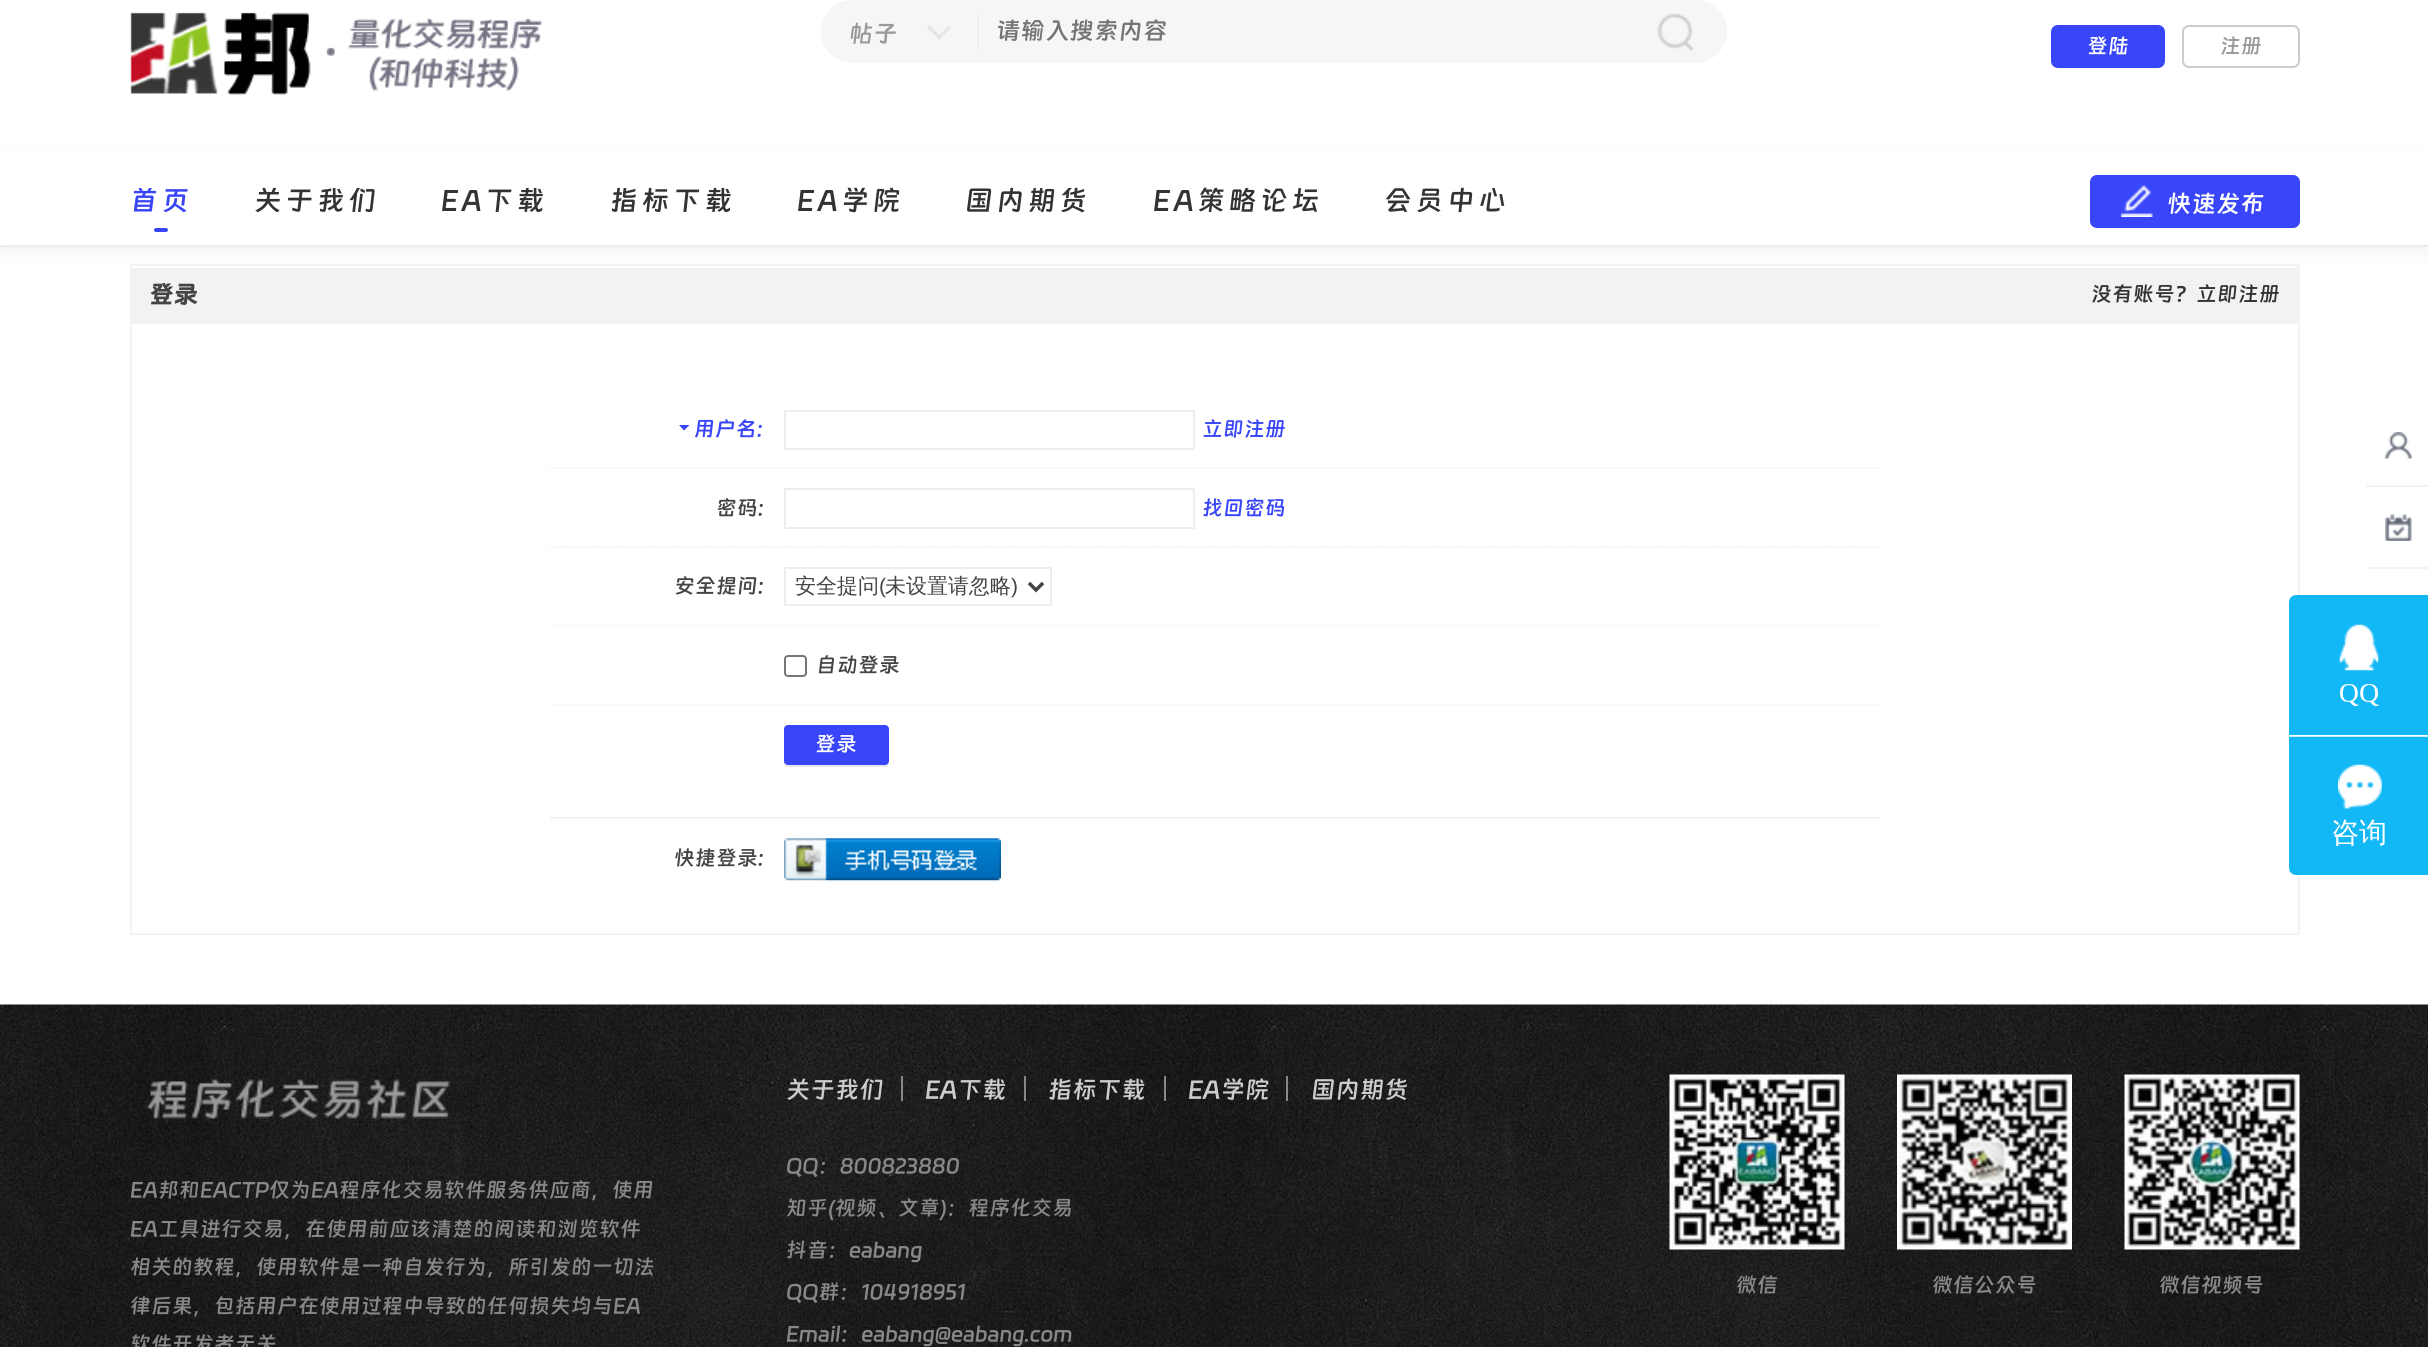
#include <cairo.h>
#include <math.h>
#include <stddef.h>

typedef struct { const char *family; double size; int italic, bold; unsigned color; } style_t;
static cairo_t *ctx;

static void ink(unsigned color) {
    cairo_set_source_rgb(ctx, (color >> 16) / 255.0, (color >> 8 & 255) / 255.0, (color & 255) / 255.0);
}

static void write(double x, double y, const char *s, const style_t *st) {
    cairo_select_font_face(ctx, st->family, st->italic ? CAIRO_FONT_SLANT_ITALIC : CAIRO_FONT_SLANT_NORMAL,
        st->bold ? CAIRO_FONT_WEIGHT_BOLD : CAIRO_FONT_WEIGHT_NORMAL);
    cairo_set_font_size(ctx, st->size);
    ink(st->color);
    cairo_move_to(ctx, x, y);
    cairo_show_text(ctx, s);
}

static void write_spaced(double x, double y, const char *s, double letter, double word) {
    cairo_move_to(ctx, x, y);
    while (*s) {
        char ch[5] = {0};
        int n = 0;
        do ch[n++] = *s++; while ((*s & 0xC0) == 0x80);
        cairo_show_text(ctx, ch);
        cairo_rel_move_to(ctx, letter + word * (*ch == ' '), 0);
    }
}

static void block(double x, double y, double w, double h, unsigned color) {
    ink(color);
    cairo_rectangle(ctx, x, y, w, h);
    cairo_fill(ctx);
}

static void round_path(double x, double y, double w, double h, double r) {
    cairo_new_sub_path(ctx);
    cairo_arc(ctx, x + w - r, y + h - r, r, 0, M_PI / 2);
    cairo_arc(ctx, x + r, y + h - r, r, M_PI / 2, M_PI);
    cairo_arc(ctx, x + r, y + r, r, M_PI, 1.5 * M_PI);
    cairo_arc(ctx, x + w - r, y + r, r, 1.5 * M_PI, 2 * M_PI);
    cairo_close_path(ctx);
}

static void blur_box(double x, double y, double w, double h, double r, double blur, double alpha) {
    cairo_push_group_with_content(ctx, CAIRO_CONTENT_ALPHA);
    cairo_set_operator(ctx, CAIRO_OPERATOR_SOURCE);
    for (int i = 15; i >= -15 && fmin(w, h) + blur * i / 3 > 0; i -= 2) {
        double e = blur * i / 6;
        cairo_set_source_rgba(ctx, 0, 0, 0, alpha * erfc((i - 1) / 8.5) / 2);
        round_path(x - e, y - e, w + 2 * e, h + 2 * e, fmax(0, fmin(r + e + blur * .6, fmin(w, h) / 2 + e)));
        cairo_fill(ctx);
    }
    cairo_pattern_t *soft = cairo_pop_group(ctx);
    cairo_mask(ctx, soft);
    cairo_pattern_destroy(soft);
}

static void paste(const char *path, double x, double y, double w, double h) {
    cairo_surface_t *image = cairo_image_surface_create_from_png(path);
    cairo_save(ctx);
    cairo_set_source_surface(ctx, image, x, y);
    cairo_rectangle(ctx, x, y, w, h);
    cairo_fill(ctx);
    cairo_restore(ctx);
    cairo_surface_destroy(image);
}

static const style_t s1 = {"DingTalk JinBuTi", 24.5, 1, 0, 0x999999};
static const style_t s2 = {"DingTalk JinBuTi", 24.5, 1, 0, 0x757575};
static const style_t s3 = {"DingTalk JinBuTi", 21, 1, 0, 0xffffff};
static const style_t s4 = {"DingTalk JinBuTi", 21, 1, 0, 0x999999};
static const style_t s5 = {"DingTalk JinBuTi", 24.5, 1, 0, 0xffffff};
static const style_t s6 = {"DingTalk JinBuTi", 24.5, 1, 1, 0x444444};
static const style_t s7 = {"DingTalk JinBuTi", 21, 1, 0, 0x333333};
static const style_t s8 = {"DingTalk JinBuTi", 21, 1, 0, 0x3945f9};
static const style_t s9 = {"DingTalk JinBuTi", 21, 1, 0, 0x444444};
static const style_t s10 = {"WenQuanYi Zen Hei Medium", 21, 0, 0, 0x444444};
static const style_t s11 = {"Liberation Sans", 21, 0, 0, 0x444444};
static const style_t s12 = {"DingTalk JinBuTi", 21, 1, 0, 0x888888};
static const style_t s13 = {"DingTalk JinBuTi", 24.5, 1, 0, 0xcccccc};

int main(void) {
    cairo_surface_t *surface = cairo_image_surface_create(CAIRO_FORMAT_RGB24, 2428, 1347);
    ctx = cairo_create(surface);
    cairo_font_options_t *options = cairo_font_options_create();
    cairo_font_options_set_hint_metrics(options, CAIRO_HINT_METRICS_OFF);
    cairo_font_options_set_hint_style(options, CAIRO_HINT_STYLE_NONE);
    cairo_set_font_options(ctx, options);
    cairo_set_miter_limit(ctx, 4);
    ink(0xffffff);
    cairo_paint(ctx);
    paste("pic1.png", 130, 12, 412, 83);
    ink(0xf6f6f6);
    round_path(821, 0, 906, 63, 31.5);
    cairo_fill(ctx);
    paste("pic2.png", 927, 24, 24, 16);
    block(977, 14, 2, 35, 0xeeeeee);
    write(849, 42, "帖子", &s1);
    write(996, 39, "请输入搜索内容", &s2);
    paste("pic3.png", 1657, 13, 37, 38);
    ink(0x3945f9);
    round_path(2051, 25, 114, 43, 7);
    cairo_fill(ctx);
    write(2087, 53, "登陆", &s3);
    round_path(2183, 26, 116, 41, 6);
    ink(0xcccccc);
    cairo_stroke(ctx);
    write(2220, 53, "注册", &s4);
    ink(0x000000);
    blur_box(-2, 159, 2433, 93, 0, 9, 0.05);
    block(0, 151, 2428, 94, 0xffffff);
    block(0, 245, 2428, 2, 0xe9eef5);
    cairo_set_font_size(ctx, 28);
    ink(0x3945f9);
    write_spaced(130, 210, "首页", 3.5, 0);
    cairo_new_path(ctx);
    cairo_move_to(ctx, 156, 228);
    cairo_line_to(ctx, 165, 228);
    cairo_line_to(ctx, 165, 232);
    cairo_line_to(ctx, 156, 232);
    cairo_curve_to(ctx, 155, 232, 154, 231, 154, 230);
    cairo_curve_to(ctx, 154, 229, 155, 228, 156, 228);
    cairo_close_path(ctx);
    cairo_fill(ctx);
    cairo_new_path(ctx);
    cairo_move_to(ctx, 158, 228);
    cairo_line_to(ctx, 166, 228);
    cairo_curve_to(ctx, 167, 228, 168, 229, 168, 230);
    cairo_curve_to(ctx, 168, 231, 167, 232, 166, 232);
    cairo_line_to(ctx, 158, 232);
    cairo_close_path(ctx);
    cairo_fill(ctx);
    ink(0x333333);
    write_spaced(254, 210, "关于我们", 3.5, 0);
    write_spaced(441, 210, "EA下载", 3.5, 0);
    write_spaced(610, 210, "指标下载", 3.5, 0);
    write_spaced(797, 210, "EA学院", 3.5, 0);
    write_spaced(965, 210, "国内期货", 3.5, 0);
    write_spaced(1153, 210, "EA策略论坛", 3.5, 0);
    write_spaced(1384, 210, "会员中心", 3.5, 0);
    ink(0x3945f9);
    round_path(2090, 175, 210, 53, 7);
    cairo_fill(ctx);
    paste("pic4.png", 2121, 185, 32, 32);
    write(2167, 212, "快速发布", &s5);
    block(2366, 485, 62, 2, 0xf3f3f3);
    paste("pic5.png", 2385, 432, 27, 27);
    block(2366, 567, 62, 2, 0xf3f3f3);
    paste("pic6.png", 2385, 514, 27, 27);
    cairo_rectangle(ctx, 131, 265, 2168, 669);
    cairo_stroke(ctx);
    block(132, 268, 2166, 56, 0xf2f2f2);
    block(131, 266, 1, 2, 0xffffff);
    write(149, 303, "登录", &s6);
    write(2091, 301, "没有账号？立即注册", &s7);
    cairo_new_path(ctx);
    cairo_move_to(ctx, 549.5, 468);
    cairo_line_to(ctx, 1879.5, 468);
    ink(0xf3f3f3);
    cairo_set_line_width(ctx, 1.8);
    cairo_set_dash(ctx, (double[]){1.75, 1.75}, 2, 0);
    cairo_stroke(ctx);
    ink(0x3945f9);
    cairo_new_path(ctx);
    cairo_move_to(ctx, 679, 425);
    cairo_line_to(ctx, 689.5, 425);
    cairo_line_to(ctx, 684, 430.5);
    cairo_close_path(ctx);
    cairo_fill(ctx);
    write(694, 436, "用户名:", &s8);
    cairo_rectangle(ctx, 785, 411, 409, 38);
    ink(0xededed);
    cairo_set_line_width(ctx, 2);
    cairo_set_dash(ctx, NULL, 0, 0);
    cairo_stroke(ctx);
    write(1202, 436, "立即注册", &s8);
    cairo_new_path(ctx);
    cairo_move_to(ctx, 549.5, 547);
    cairo_line_to(ctx, 1879.5, 547);
    ink(0xf3f3f3);
    cairo_set_line_width(ctx, 1.8);
    cairo_set_dash(ctx, (double[]){1.75, 1.75}, 2, 0);
    cairo_stroke(ctx);
    write(716, 515, "密码:", &s9);
    cairo_rectangle(ctx, 785, 489, 409, 39);
    ink(0xededed);
    cairo_set_line_width(ctx, 2);
    cairo_set_dash(ctx, NULL, 0, 0);
    cairo_stroke(ctx);
    write(1202, 515, "找回密码", &s8);
    cairo_new_path(ctx);
    cairo_move_to(ctx, 549.5, 625.5);
    cairo_line_to(ctx, 1879.5, 625.5);
    ink(0xf3f3f3);
    cairo_set_line_width(ctx, 1.8);
    cairo_set_dash(ctx, (double[]){1.75, 1.75}, 2, 0);
    cairo_stroke(ctx);
    write(674, 593, "安全提问:", &s9);
    cairo_rectangle(ctx, 785, 568, 266, 37);
    ink(0xededed);
    cairo_set_line_width(ctx, 2);
    cairo_set_dash(ctx, NULL, 0, 0);
    cairo_stroke(ctx);
    cairo_new_path(ctx);
    cairo_move_to(ctx, 1029, 583);
    cairo_line_to(ctx, 1036, 590);
    cairo_line_to(ctx, 1043, 583);
    ink(0x444444);
    cairo_set_line_width(ctx, 3.5);
    cairo_stroke(ctx);
    write(795, 593, "安全提问", &s10);
    write(879, 593, "(", &s11);
    write(885, 593, "未设置请忽略", &s10);
    write(1011, 593, ")", &s11);
    cairo_new_path(ctx);
    cairo_move_to(ctx, 549.5, 704.5);
    cairo_line_to(ctx, 1879.5, 704.5);
    ink(0xf3f3f3);
    cairo_set_line_width(ctx, 1.8);
    cairo_set_dash(ctx, (double[]){1.75, 1.75}, 2, 0);
    cairo_stroke(ctx);
    round_path(785, 656, 21, 20, 3);
    ink(0x767676);
    cairo_set_line_width(ctx, 2);
    cairo_set_dash(ctx, NULL, 0, 0);
    cairo_stroke(ctx);
    write(816, 672, "自动登录", &s9);
    ink(0xe5e5e5);
    cairo_new_path(ctx);
    cairo_move_to(ctx, 784, 761);
    cairo_line_to(ctx, 784, 763);
    cairo_curve_to(ctx, 784, 765, 786, 767, 788, 767);
    cairo_line_to(ctx, 885, 767);
    cairo_curve_to(ctx, 887, 767, 889, 765, 889, 763);
    cairo_line_to(ctx, 889, 761);
    cairo_curve_to(ctx, 889, 763, 887, 765, 886, 765);
    cairo_line_to(ctx, 788, 765);
    cairo_curve_to(ctx, 786, 765, 784, 763, 784, 761);
    cairo_close_path(ctx);
    cairo_fill(ctx);
    ink(0x3945f9);
    round_path(784, 725, 105, 40, 4);
    cairo_fill(ctx);
    write(815, 751, "登录", &s3);
    block(550, 817, 1330, 2, 0xf3f3f3);
    write(674, 865, "快捷登录:", &s9);
    paste("pic7.png", 784, 838, 217, 43);
    paste("pic8.png", 0, 1004, 2428, 343);
    paste("pic9.png", 2289, 595, 139, 280);
    paste("pic10.png", 146, 1079, 305, 41);
    write(130, 1197, "EA邦和EACTP仅为EA程序化交易软件服务供应商，使用", &s12);
    write(130, 1236, "EA工具进行交易，在使用前应该清楚的阅读和浏览软件", &s12);
    write(130, 1274, "相关的教程，使用软件是一种自发行为，所引发的一切法", &s12);
    write(130, 1313, "律后果，包括用户在使用过程中导致的任何损失均与EA", &s12);
    write(130, 1351, "软件开发者无关", &s12);
    block(901, 1076, 2, 25, 0x888888);
    write(786, 1098, "关于我们", &s13);
    block(1024, 1076, 2, 25, 0x888888);
    write(925, 1098, "EA下载", &s13);
    block(1164, 1076, 2, 25, 0x888888);
    write(1048, 1098, "指标下载", &s13);
    block(1286, 1076, 2, 25, 0x888888);
    write(1188, 1098, "EA学院", &s13);
    write(1311, 1098, "国内期货", &s13);
    write(786, 1173, "QQ：800823880", &s12);
    write(786, 1215, "知乎(视频、文章)：程序化交易", &s12);
    write(786, 1257, "抖音：eabang", &s12);
    write(786, 1299, "QQ群：104918951", &s12);
    write(786, 1341, "Email：eabang@eabang.com", &s12);
    paste("pic11.png", 1669, 1074, 176, 176);
    write(1736, 1292, "微信", &s12);
    paste("pic12.png", 1897, 1074, 175, 176);
    write(1932, 1292, "微信公众号", &s12);
    paste("pic13.png", 2124, 1074, 176, 176);
    write(2159, 1292, "微信视频号", &s12);
    cairo_surface_write_to_png(surface, "screenshot.png");
    cairo_font_options_destroy(options);
    cairo_destroy(ctx);
    cairo_surface_destroy(surface);
    return 0;
}
